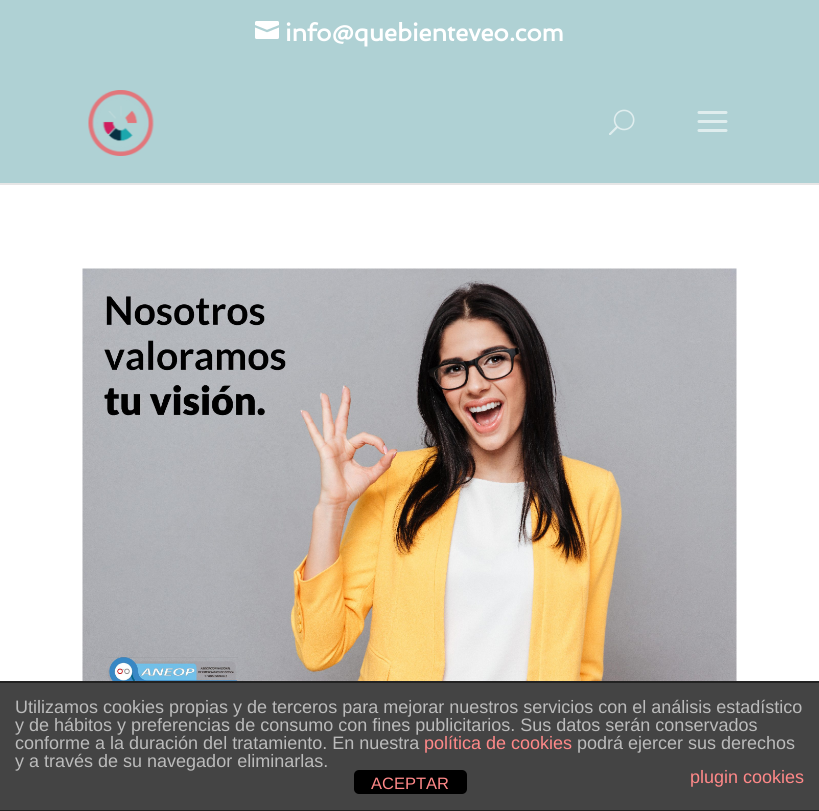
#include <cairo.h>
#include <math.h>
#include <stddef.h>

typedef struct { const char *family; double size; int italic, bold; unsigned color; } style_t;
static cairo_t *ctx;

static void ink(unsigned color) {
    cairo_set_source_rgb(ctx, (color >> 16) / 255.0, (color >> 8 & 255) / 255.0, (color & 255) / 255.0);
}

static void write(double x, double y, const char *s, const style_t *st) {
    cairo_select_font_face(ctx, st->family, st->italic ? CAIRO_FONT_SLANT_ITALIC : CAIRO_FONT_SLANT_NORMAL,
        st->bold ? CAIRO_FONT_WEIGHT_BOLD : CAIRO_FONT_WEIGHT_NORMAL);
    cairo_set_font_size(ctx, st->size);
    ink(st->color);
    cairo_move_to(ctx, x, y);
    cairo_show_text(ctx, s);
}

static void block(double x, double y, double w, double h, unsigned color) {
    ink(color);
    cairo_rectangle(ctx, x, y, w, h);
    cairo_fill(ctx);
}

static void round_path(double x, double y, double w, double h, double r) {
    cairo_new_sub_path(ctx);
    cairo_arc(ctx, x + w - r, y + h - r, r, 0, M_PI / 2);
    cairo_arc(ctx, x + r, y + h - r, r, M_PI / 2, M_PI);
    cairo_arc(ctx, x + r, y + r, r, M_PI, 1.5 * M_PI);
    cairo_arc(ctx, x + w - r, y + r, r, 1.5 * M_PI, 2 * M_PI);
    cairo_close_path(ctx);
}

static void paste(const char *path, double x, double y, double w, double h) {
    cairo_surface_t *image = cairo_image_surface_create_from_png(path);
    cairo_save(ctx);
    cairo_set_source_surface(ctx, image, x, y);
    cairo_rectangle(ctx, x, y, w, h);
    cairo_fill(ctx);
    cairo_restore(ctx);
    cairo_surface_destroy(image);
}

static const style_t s1 = {"Spinnaker", 24, 0, 1, 0xffffff};
static const style_t s2 = {"Liberation Sans", 18, 0, 0, 0xbbbbbb};
static const style_t s3 = {"Liberation Sans", 18, 0, 0, 0xff8888};
static const style_t s4 = {"Liberation Sans", 16.5, 0, 0, 0xff8888};

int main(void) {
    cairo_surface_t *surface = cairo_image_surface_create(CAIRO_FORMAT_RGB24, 819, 811);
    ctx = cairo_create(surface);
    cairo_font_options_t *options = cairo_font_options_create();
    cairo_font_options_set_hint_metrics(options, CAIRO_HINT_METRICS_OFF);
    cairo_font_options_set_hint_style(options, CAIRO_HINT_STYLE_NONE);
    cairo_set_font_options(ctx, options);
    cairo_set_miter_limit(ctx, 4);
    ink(0xffffff);
    cairo_paint(ctx);
    block(0, 183, 819, 2, 0xe6e6e6);
    block(0, 0, 819, 183, 0xafd1d4);
    paste("pic1.png", 88, 90, 66, 66);
    paste("pic2.png", 609, 109, 26, 26);
    paste("pic3.png", 697, 111, 31, 21);
    paste("pic4.png", 255, 21, 24, 18);
    write(285, 41, "info@quebienteveo.com", &s1);
    paste("pic5.png", 82, 268, 655, 413);
    block(0, 683, 819, 127, 0x444444);
    block(0, 681, 819, 2, 0x222222);
    block(0, 810, 819, 1, 0x222222);
    write(15, 713, "Utilizamos cookies propias y de terceros para mejorar nuestros servicios con el análisis estadístico", &s2);
    write(15, 731, "y de hábitos y preferencias de consumo con fines publicitarios. Sus datos serán conservados", &s2);
    write(15, 749, "conforme a la duración del tratamiento. En nuestra", &s2);
    write(424, 749, "política de cookies", &s3);
    write(577, 749, "podrá ejercer sus derechos", &s2);
    write(15, 767, "y a través de su navegador eliminarlas.", &s2);
    write(690, 783, "plugin cookies", &s3);
    ink(0x000000);
    round_path(354, 770, 113, 24, 5);
    cairo_fill(ctx);
    write(371, 789, "ACEPTAR", &s4);
    cairo_surface_write_to_png(surface, "screenshot.png");
    cairo_font_options_destroy(options);
    cairo_destroy(ctx);
    cairo_surface_destroy(surface);
    return 0;
}
